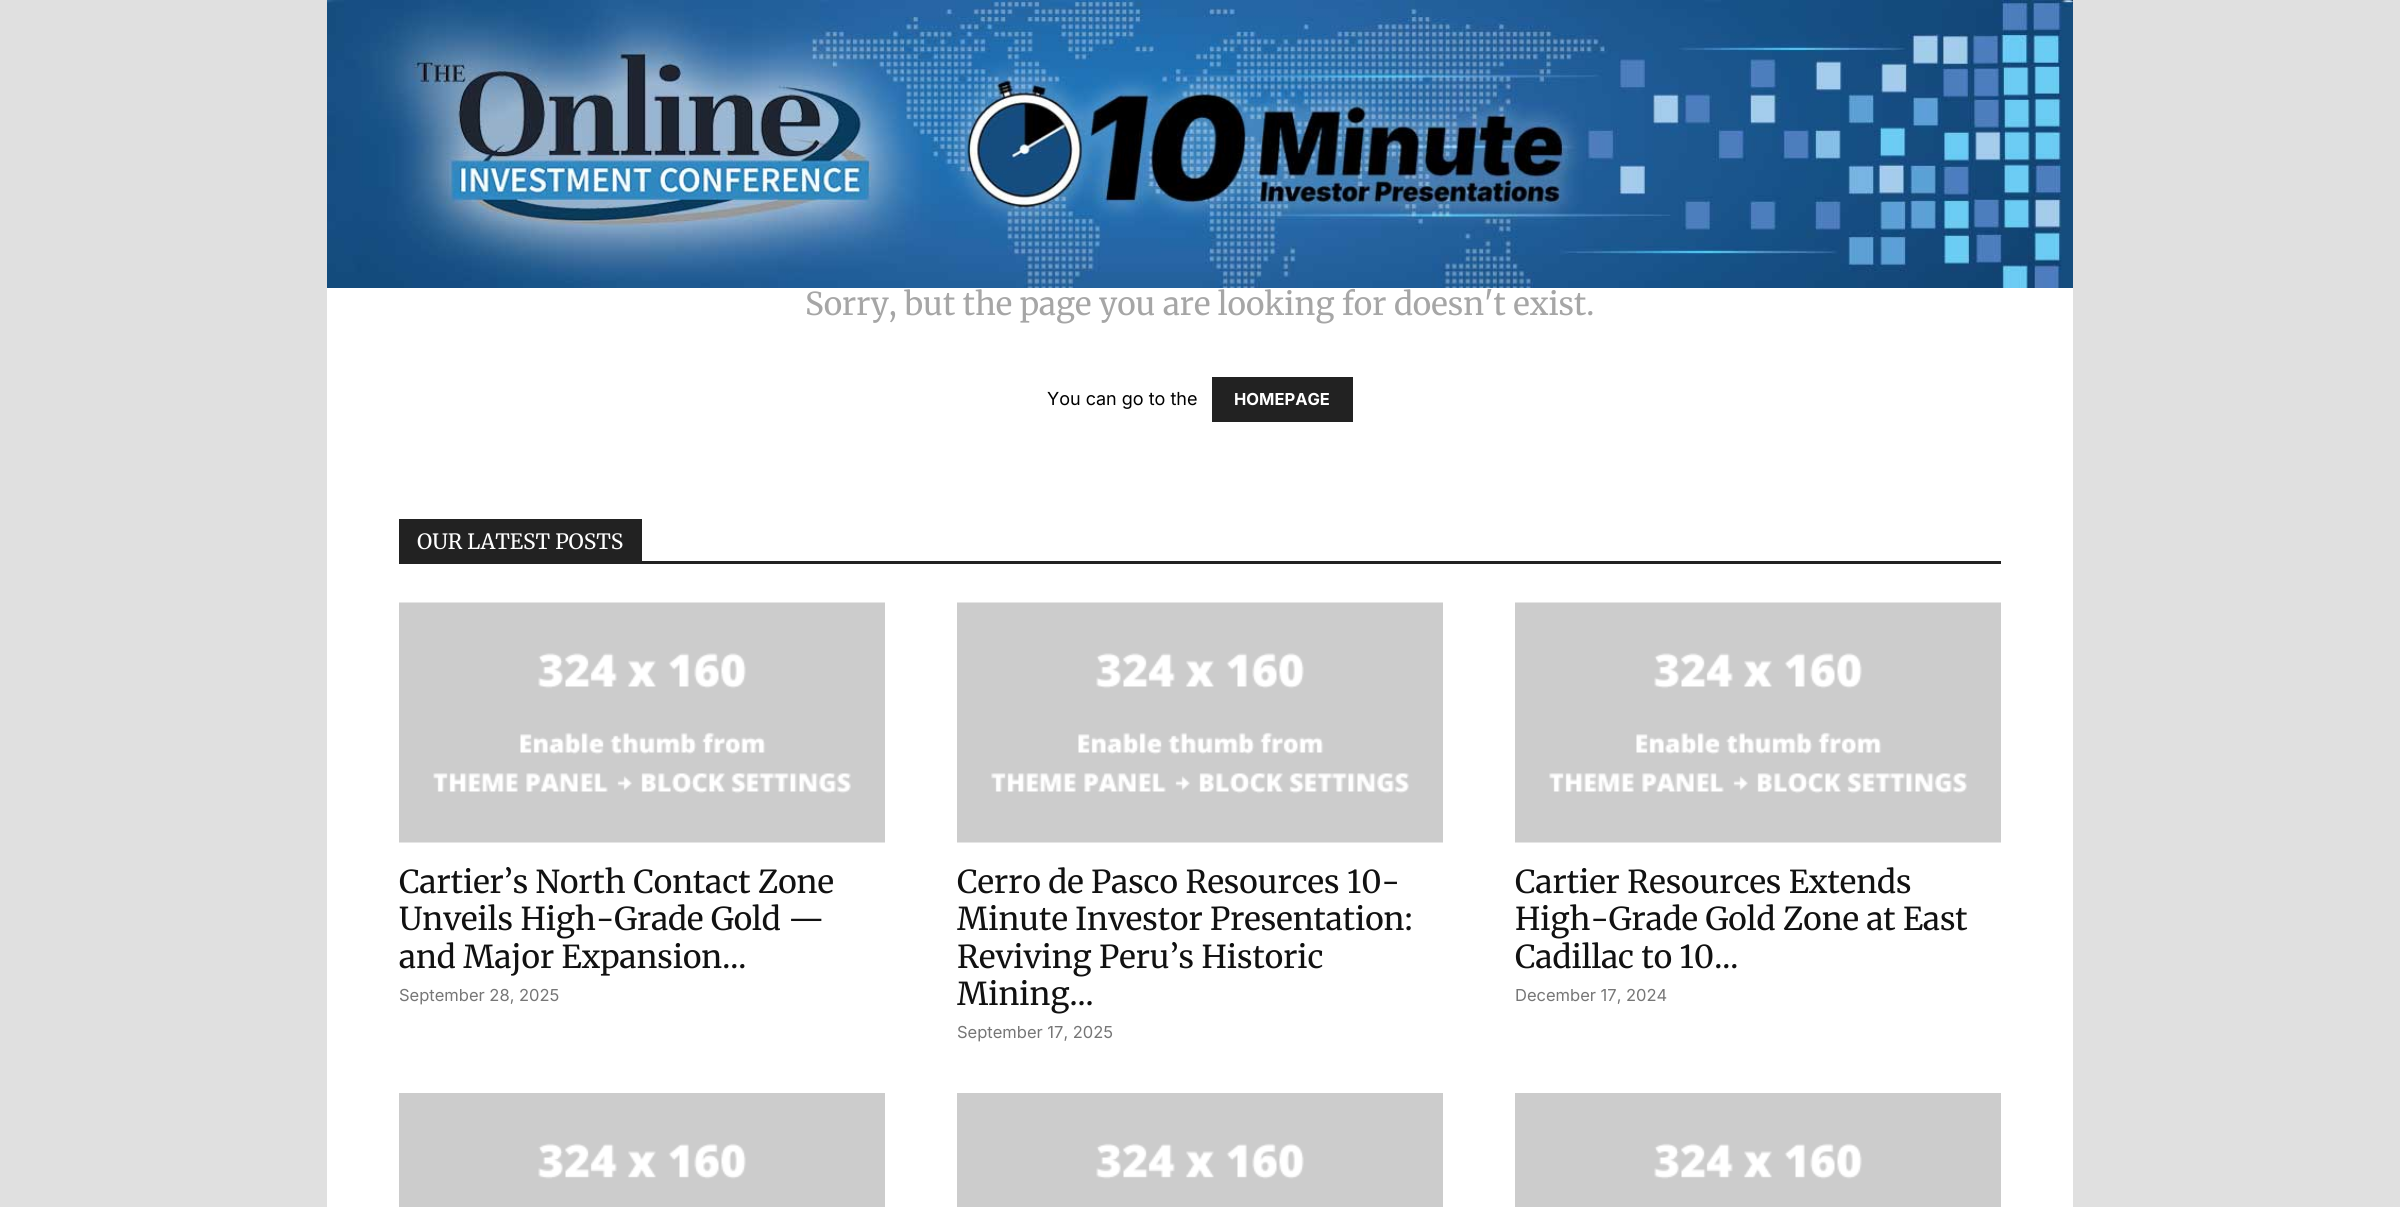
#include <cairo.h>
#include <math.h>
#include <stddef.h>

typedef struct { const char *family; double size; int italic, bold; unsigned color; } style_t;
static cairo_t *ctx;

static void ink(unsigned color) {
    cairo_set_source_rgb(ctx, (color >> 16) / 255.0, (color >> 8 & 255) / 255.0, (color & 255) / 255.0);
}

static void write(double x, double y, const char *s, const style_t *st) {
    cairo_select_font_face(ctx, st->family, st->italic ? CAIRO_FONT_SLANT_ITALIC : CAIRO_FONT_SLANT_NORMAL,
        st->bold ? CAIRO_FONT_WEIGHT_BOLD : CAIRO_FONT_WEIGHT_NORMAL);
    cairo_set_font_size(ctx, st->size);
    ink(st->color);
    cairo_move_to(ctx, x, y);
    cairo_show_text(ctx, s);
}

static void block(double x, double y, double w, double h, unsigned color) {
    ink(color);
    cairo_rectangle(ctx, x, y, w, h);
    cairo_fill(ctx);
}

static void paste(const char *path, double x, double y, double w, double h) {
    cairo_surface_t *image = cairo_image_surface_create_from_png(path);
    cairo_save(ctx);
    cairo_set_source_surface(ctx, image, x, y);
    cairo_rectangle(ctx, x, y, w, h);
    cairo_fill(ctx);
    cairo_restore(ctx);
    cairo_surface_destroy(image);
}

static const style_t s1 = {"Merriweather", 31.5, 0, 0, 0xa6a6a6};
static const style_t s2 = {"Inter", 18, 0, 0, 0x000000};
static const style_t s3 = {"Inter", 16.5, 0, 1, 0xffffff};
static const style_t s4 = {"Merriweather", 21, 0, 0, 0xffffff};
static const style_t s5 = {"Merriweather", 31.5, 0, 0, 0x111111};
static const style_t s6 = {"Inter", 16.5, 0, 0, 0x767676};

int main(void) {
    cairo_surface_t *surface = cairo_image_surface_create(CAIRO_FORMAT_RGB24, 2400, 1207);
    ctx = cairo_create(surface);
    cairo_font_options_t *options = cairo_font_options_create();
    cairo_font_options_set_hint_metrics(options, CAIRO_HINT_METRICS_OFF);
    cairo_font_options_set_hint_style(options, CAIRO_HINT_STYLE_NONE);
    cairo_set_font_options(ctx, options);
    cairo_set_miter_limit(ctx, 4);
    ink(0xe0e0e0);
    cairo_paint(ctx);
    paste("pic1.png", 327, 0, 1746, 288);
    block(327, 288, 1746, 919, 0xffffff);
    write(805, 315, "Sorry, but the page you are looking for doesn't exist.", &s1);
    write(1047, 405, "You can go to the", &s2);
    block(1212, 377, 141, 45, 0x222222);
    write(1234, 405, "HOMEPAGE", &s3);
    block(399, 561, 1602, 3, 0x222222);
    block(399, 519, 243, 42, 0x222222);
    write(417, 549, "OUR LATEST POSTS", &s4);
    paste("pic2.png", 399, 602, 486, 241);
    write(399, 893, "Cartier’s North Contact Zone", &s5);
    write(399, 930, "Unveils High-Grade Gold —", &s5);
    write(399, 968, "and Major Expansion...", &s5);
    write(399, 1001, "September 28, 2025", &s6);
    paste("pic3.png", 957, 602, 486, 241);
    write(957, 893, "Cerro de Pasco Resources 10-", &s5);
    write(957, 930, "Minute Investor Presentation:", &s5);
    write(957, 968, "Reviving Peru’s Historic", &s5);
    write(957, 1005, "Mining...", &s5);
    write(957, 1038, "September 17, 2025", &s6);
    paste("pic3.png", 1515, 602, 486, 241);
    write(1515, 893, "Cartier Resources Extends", &s5);
    write(1515, 930, "High-Grade Gold Zone at East", &s5);
    write(1515, 968, "Cadillac to 10...", &s5);
    write(1515, 1001, "December 17, 2024", &s6);
    paste("pic4.png", 399, 1093, 486, 114);
    paste("pic4.png", 957, 1093, 486, 114);
    paste("pic4.png", 1515, 1093, 486, 114);
    cairo_surface_write_to_png(surface, "screenshot.png");
    cairo_font_options_destroy(options);
    cairo_destroy(ctx);
    cairo_surface_destroy(surface);
    return 0;
}
